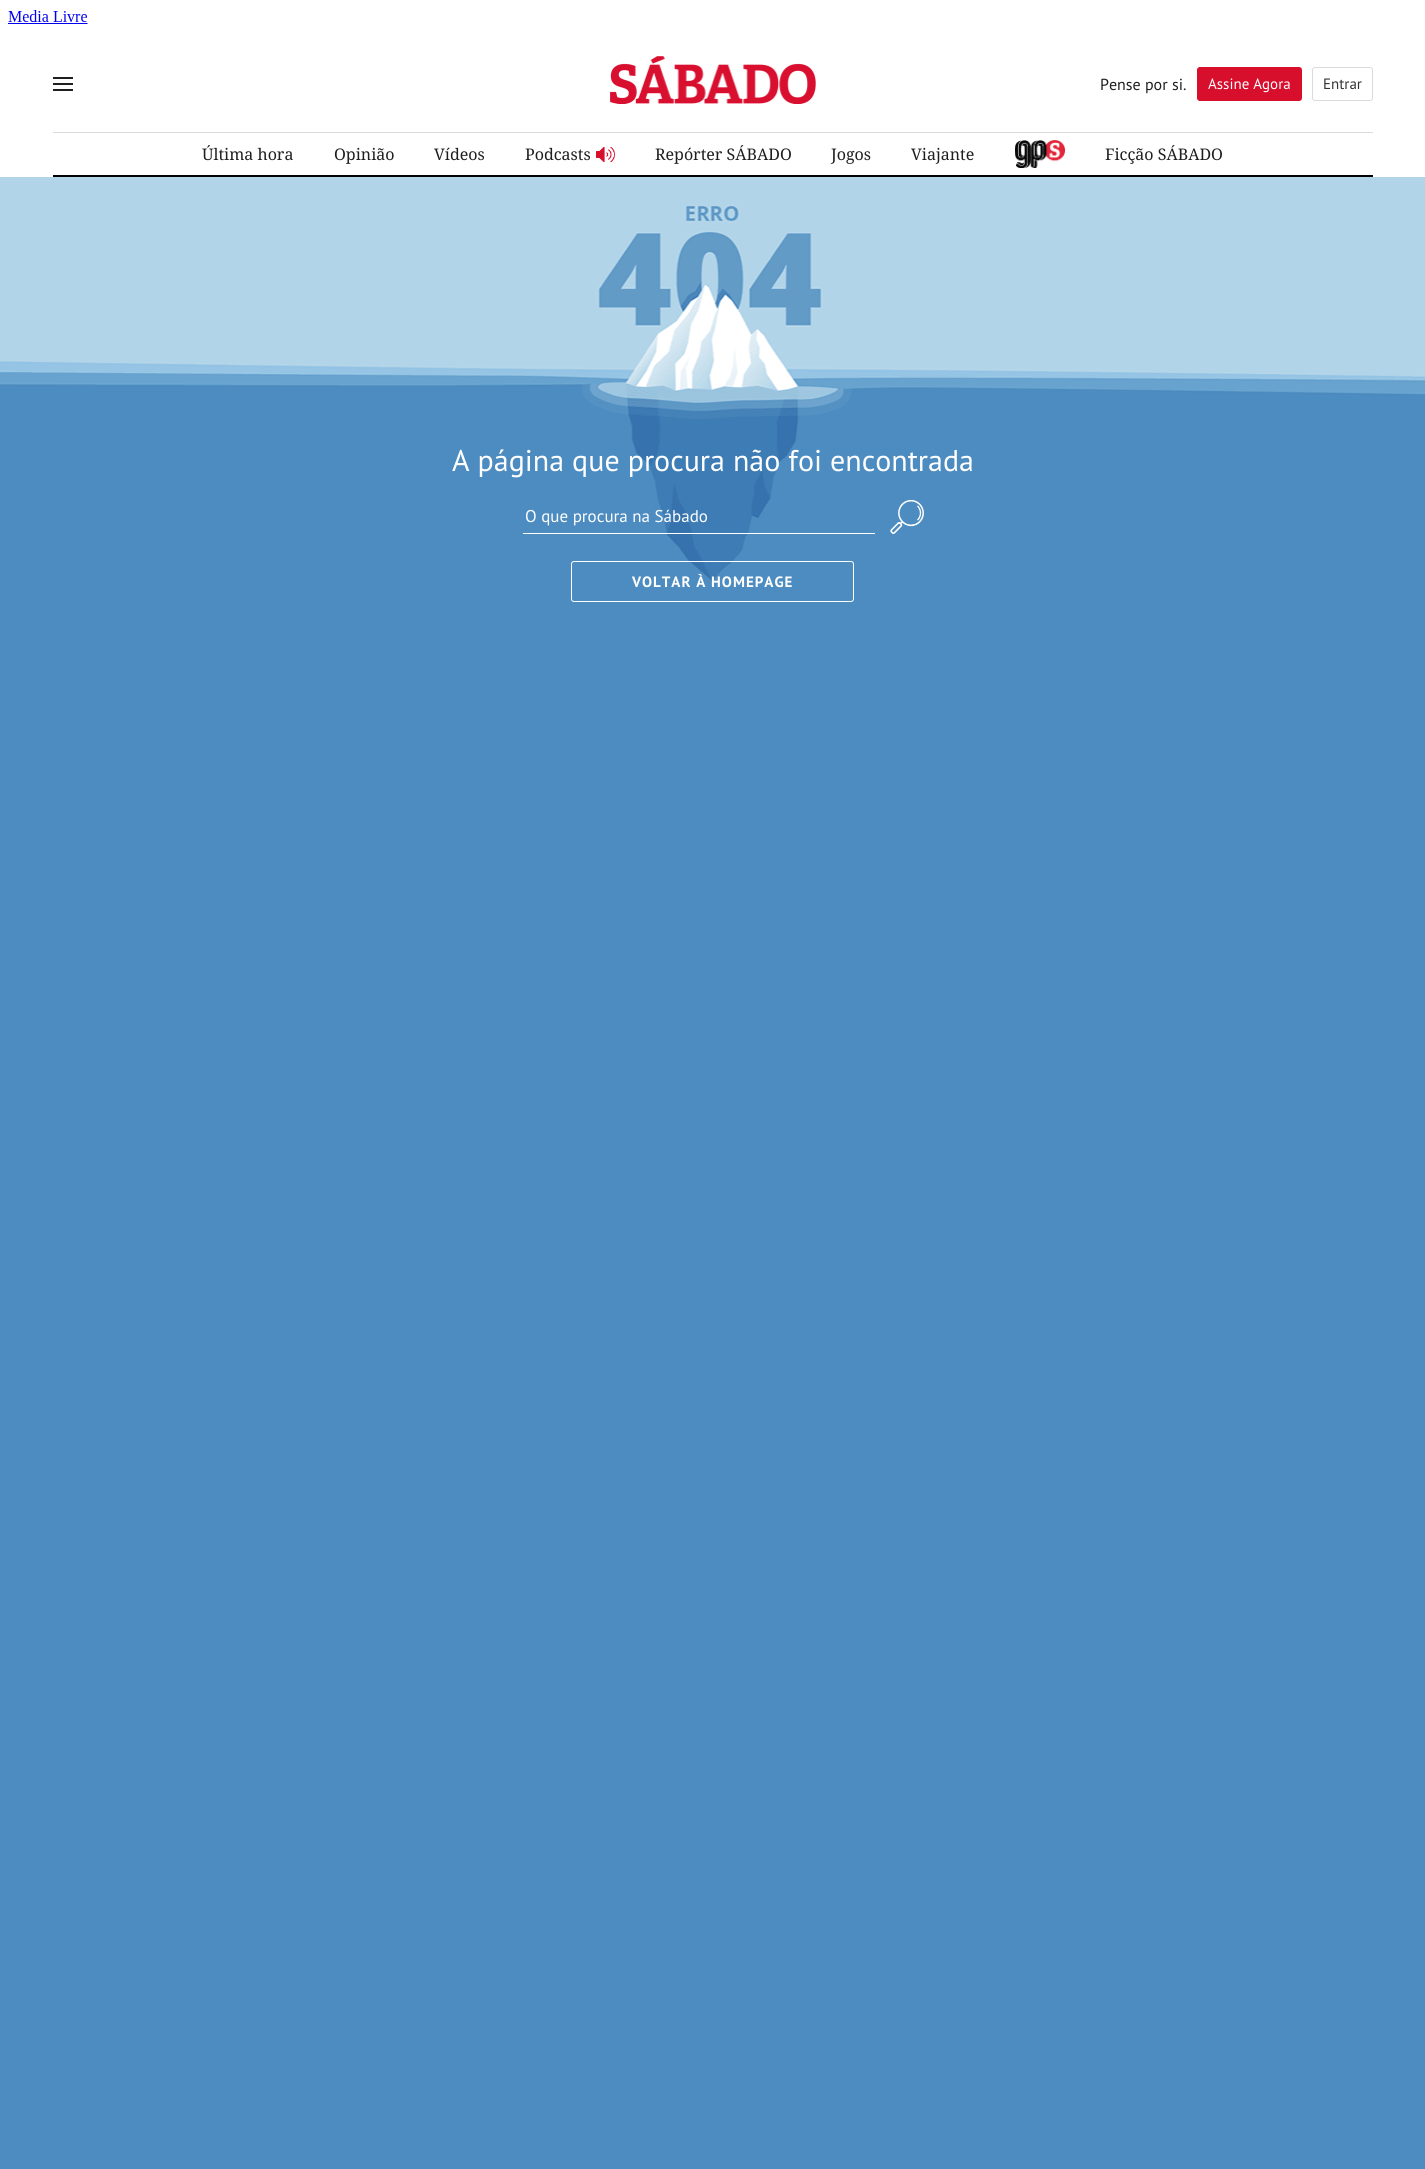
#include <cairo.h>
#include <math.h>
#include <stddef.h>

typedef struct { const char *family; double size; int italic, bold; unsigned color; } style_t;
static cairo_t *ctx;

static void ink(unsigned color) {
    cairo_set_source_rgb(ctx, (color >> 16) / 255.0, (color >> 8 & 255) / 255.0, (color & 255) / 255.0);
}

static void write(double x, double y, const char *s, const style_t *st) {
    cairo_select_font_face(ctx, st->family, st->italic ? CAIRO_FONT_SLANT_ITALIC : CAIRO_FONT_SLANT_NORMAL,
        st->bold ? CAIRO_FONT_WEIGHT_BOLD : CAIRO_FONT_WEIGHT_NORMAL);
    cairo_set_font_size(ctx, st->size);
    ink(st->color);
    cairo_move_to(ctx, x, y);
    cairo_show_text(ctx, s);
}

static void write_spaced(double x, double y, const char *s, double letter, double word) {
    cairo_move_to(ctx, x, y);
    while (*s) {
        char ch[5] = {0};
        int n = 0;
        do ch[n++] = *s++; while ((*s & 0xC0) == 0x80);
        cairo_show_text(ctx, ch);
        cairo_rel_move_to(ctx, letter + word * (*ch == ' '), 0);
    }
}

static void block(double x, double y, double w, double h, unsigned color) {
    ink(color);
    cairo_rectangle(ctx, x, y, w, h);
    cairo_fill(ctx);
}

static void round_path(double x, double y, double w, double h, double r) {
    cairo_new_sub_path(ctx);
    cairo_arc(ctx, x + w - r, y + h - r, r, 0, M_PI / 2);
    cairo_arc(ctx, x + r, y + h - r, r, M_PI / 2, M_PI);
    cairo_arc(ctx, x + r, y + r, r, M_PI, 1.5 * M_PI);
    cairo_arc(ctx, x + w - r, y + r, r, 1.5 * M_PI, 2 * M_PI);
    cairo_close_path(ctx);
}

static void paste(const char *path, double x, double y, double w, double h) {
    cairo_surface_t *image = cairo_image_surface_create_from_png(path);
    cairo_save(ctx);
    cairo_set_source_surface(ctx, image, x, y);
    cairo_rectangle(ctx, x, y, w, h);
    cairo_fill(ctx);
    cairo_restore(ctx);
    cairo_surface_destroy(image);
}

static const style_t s1 = {"PT Sans", 16, 0, 0, 0x1f1f1f};
static const style_t s2 = {"PT Sans", 15, 0, 0, 0xffffff};
static const style_t s3 = {"PT Sans", 15, 0, 0, 0x333333};
static const style_t s4 = {"Noto Serif", 16, 0, 0, 0x1f1f1f};
static const style_t s5 = {"PT Sans", 30, 0, 0, 0xffffff};
static const style_t s6 = {"PT Sans", 17, 0, 0, 0xffffff};

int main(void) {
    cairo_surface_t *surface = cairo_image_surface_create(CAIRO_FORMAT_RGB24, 1425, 2169);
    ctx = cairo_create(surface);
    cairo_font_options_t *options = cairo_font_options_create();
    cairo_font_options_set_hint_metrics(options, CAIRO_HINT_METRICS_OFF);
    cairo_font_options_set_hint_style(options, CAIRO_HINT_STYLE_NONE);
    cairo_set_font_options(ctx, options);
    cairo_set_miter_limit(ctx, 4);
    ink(0xb2d4e8);
    cairo_paint(ctx);
    block(0, 0, 1425, 177, 0xffffff);
    paste("pic1.png", 8, 10, 80, 14);
    block(53, 175, 1320, 2, 0x010101);
    block(53, 83, 20, 2, 0x1f1f1f);
    block(53, 77, 20, 2, 0x1f1f1f);
    block(53, 89, 20, 2, 0x1f1f1f);
    paste("pic2.png", 610, 56, 206, 48);
    write(1100, 90, "Pense por si.", &s1);
    ink(0xd80e2d);
    round_path(1197.5, 67.5, 104, 33, 2.5);
    cairo_fill_preserve(ctx);
    cairo_set_line_width(ctx, 1);
    cairo_stroke(ctx);
    write(1208, 89, "Assine Agora", &s2);
    round_path(1312.5, 67.5, 60, 33, 2.5);
    ink(0xdbdbdb);
    cairo_stroke(ctx);
    write(1323, 89, "Entrar", &s3);
    block(53, 132, 1320, 1, 0xdbdbdb);
    write(202, 160, "Última hora", &s4);
    write(334, 160, "Opinião", &s4);
    write(434, 160, "Vídeos", &s4);
    write(525, 160, "Podcasts", &s4);
    paste("pic3.png", 596, 147, 19, 15);
    write(655, 160, "Repórter SÁBADO", &s4);
    write(831, 160, "Jogos", &s4);
    write(911, 160, "Viajante", &s4);
    paste("pic4.png", 1015, 140, 50, 28);
    write(1105, 160, "Ficção SÁBADO", &s4);
    block(0, 581, 1425, 1588, 0x4d8cc0);
    paste("pic5.png", 0, 185, 1425, 396);
    write(452, 471, "A página que procura não foi encontrada", &s5);
    block(523, 533, 352, 1, 0xffffff);
    write(525, 522, "O que procura na Sábado", &s6);
    paste("pic6.png", 890, 500, 34, 34);
    round_path(571.5, 561.5, 282, 40, 2.5);
    cairo_stroke(ctx);
    cairo_select_font_face(ctx, "PT Sans", CAIRO_FONT_SLANT_NORMAL, CAIRO_FONT_WEIGHT_BOLD);
    cairo_set_font_size(ctx, 15);
    write_spaced(632, 587, "VOLTAR À HOMEPAGE", 1, 0);
    cairo_surface_write_to_png(surface, "screenshot.png");
    cairo_font_options_destroy(options);
    cairo_destroy(ctx);
    cairo_surface_destroy(surface);
    return 0;
}
